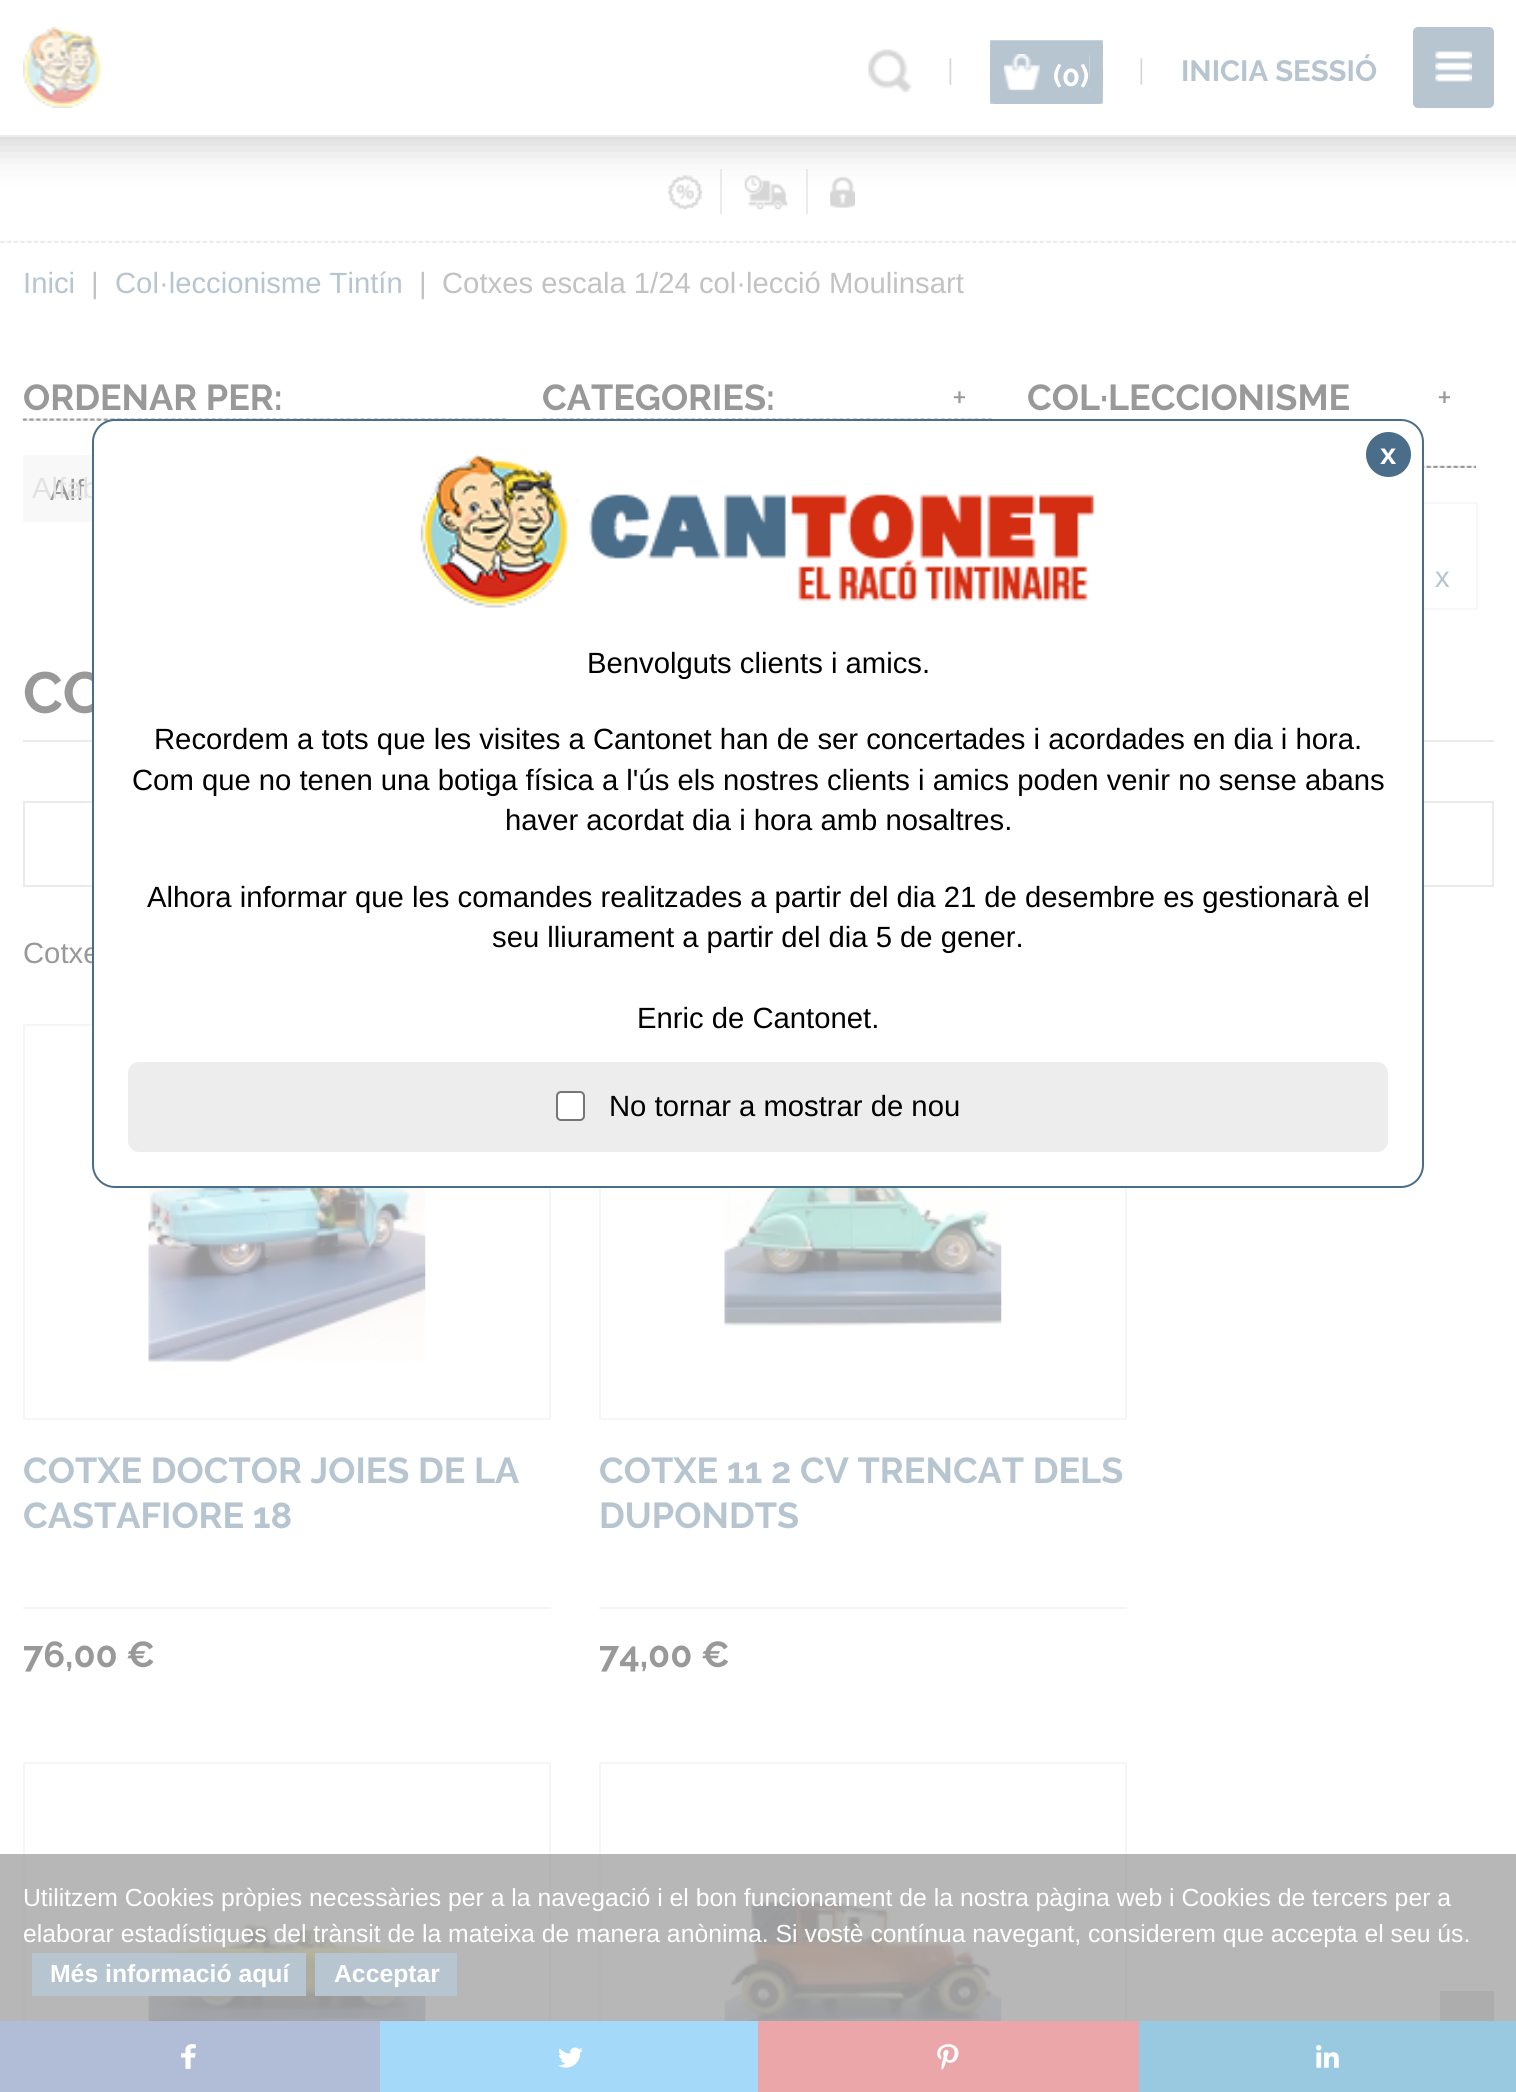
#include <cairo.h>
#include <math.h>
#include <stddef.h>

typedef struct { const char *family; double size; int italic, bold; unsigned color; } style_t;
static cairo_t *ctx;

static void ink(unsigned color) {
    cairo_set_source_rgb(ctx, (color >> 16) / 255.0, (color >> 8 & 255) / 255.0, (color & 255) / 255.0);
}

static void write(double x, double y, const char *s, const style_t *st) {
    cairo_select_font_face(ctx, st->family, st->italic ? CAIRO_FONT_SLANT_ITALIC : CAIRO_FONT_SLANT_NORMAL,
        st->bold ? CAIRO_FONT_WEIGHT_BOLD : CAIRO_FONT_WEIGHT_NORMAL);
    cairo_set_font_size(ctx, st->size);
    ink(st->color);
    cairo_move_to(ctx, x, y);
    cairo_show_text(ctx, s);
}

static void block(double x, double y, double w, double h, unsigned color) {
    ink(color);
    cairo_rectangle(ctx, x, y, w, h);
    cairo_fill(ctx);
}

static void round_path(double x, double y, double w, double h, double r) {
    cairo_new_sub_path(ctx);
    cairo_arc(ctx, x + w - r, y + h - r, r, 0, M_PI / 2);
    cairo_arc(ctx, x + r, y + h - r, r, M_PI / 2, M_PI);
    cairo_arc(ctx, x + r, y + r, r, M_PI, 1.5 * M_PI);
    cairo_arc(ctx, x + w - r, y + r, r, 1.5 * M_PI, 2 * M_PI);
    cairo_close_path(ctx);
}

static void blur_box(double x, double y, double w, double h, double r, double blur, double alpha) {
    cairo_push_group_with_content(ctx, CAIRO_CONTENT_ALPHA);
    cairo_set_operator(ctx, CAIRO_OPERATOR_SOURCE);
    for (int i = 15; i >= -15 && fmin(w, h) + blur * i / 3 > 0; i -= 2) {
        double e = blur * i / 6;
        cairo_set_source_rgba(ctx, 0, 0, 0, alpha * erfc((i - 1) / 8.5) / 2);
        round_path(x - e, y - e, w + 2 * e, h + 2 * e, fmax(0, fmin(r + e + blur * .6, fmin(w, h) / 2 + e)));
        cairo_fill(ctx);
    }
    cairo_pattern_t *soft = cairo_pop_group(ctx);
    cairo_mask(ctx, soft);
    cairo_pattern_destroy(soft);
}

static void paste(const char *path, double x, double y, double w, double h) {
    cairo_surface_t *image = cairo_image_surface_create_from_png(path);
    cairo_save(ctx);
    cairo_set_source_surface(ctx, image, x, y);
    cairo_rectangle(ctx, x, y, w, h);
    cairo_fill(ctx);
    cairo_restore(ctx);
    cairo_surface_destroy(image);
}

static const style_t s1 = {"Raleway", 29.25, 0, 0, 0xd6d6d6};
static const style_t s2 = {"Raleway", 29.25, 0, 1, 0xffffff};
static const style_t s3 = {"Raleway", 29.25, 0, 1, 0xb7c5d0};
static const style_t s4 = {"Liberation Sans", 29.25, 0, 0, 0xb7c5d0};
static const style_t s5 = {"Liberation Sans", 29.25, 0, 0, 0xc2c2c2};
static const style_t s6 = {"Raleway", 36, 0, 1, 0x999999};
static const style_t s7 = {"Liberation Sans", 29.25, 0, 0, 0x999999};
static const style_t s8 = {"Liberation Sans", 29.25, 0, 0, 0xe2e2e2};
static const style_t s9 = {"Raleway", 36, 0, 0, 0x999999};
static const style_t s10 = {"Raleway", 58, 0, 1, 0x999999};
static const style_t s11 = {"Raleway", 36, 0, 1, 0xb7c5d0};
static const style_t s12 = {"Liberation Sans", 29.25, 0, 1, 0xffffff};
static const style_t s13 = {"Liberation Sans", 29.25, 0, 0, 0x000000};
static const style_t s14 = {"Liberation Sans", 24.75, 0, 0, 0xffffff};
static const style_t s15 = {"Liberation Sans", 24.75, 0, 1, 0xffffff};

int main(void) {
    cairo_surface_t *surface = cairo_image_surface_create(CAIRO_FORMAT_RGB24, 1516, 2092);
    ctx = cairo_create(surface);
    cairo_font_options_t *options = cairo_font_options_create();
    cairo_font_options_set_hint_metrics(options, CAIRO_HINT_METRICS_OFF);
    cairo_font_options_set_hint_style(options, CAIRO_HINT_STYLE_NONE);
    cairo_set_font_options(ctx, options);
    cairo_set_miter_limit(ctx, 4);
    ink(0xffffff);
    cairo_paint(ctx);
    paste("pic6.png", 668, 175, 34, 35);
    block(720, 169, 2, 45, 0xebebeb);
    paste("pic7.png", 744, 175, 44, 35);
    block(806, 169, 2, 45, 0xebebeb);
    paste("pic8.png", 830, 176, 25, 32);
    cairo_save(ctx);
    cairo_rectangle(ctx, 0, 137, 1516, 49);
    cairo_clip(ctx);
    ink(0xd6d6d6);
    blur_box(-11, -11, 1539, 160, 0, 18, 1);
    cairo_restore(ctx);
    block(0, 135, 1516, 2, 0xebebeb);
    paste("pic1.png", 23, 27, 79, 81);
    paste("pic2.png", 868, 49, 44, 44);
    write(947, 81, "|", &s1);
    ink(0xb7c5d0);
    round_path(990, 41, 113, 63, 5);
    cairo_fill(ctx);
    paste("pic3.png", 989, 54, 114, 50);
    cairo_new_path(ctx);
    cairo_move_to(ctx, 997, 47);
    cairo_line_to(ctx, 1096, 47);
    cairo_line_to(ctx, 1096, 97);
    cairo_line_to(ctx, 997, 97);
    cairo_close_path(ctx);
    cairo_set_line_width(ctx, 13.5);
    cairo_stroke(ctx);
    block(1040, 54, 49, 37, 0xb7c5d0);
    write(1053, 86, "(0)", &s2);
    write(1138, 81, "|", &s1);
    write(1181, 81, "INICIA SESSIÓ", &s3);
    round_path(1413, 27, 81, 81, 5);
    cairo_fill(ctx);
    paste("pic4.png", 1435, 51, 37, 31);
    paste("pic5.png", 0, 240, 1516, 3);
    write(23, 293, "Inici", &s4);
    write(91, 293, "|", &s5);
    write(115, 293, "Col·leccionisme Tintín", &s4);
    write(419, 293, "|", &s5);
    write(442, 293, "Cotxes escala 1/24 col·lecció Moulinsart", &s5);
    paste("pic9.png", 22, 418, 485, 3);
    write(23, 410, "ORDENAR PER:", &s6);
    block(23, 455, 69, 67, 0xf8f8f8);
    write(50, 500, "Alf", &s7);
    write(32, 498, "Alfab", &s8);
    paste("pic10.png", 542, 418, 451, 1);
    write(542, 410, "CATEGORIES:", &s6);
    write(952, 410, "+", &s9);
    paste("pic11.png", 1424, 465, 52, 3);
    write(1027, 410, "COL·LECCIONISME", &s6);
    write(1437, 410, "+", &s9);
    cairo_rectangle(ctx, 1029, 503, 448, 106);
    ink(0xf8f8f8);
    cairo_set_line_width(ctx, 2);
    cairo_stroke(ctx);
    write(1435, 587, "x", &s4);
    block(23, 740, 1471, 2, 0xebebeb);
    write(23, 713, "CO", &s10);
    cairo_rectangle(ctx, 24, 802, 1469, 84);
    ink(0xebebeb);
    cairo_stroke(ctx);
    write(23, 963, "Cotxe", &s7);
    cairo_rectangle(ctx, 24, 1025, 526, 394);
    ink(0xf6f5f5);
    cairo_stroke(ctx);
    paste("pic12.png", 148, 1188, 278, 180);
    write(23, 1483, "COTXE DOCTOR JOIES DE LA", &s11);
    write(23, 1528, "CASTAFIORE 18", &s11);
    block(23, 1607, 528, 2, 0xf6f5f5);
    write(23, 1667, "76,00 €", &s6);
    cairo_rectangle(ctx, 600, 1025, 526, 394);
    ink(0xf6f5f5);
    cairo_stroke(ctx);
    paste("pic13.png", 724, 1188, 278, 138);
    write(599, 1483, "COTXE 11 2 CV TRENCAT DELS", &s11);
    write(599, 1528, "DUPONDTS", &s11);
    block(599, 1607, 528, 2, 0xf6f5f5);
    write(599, 1667, "74,00 €", &s6);
    cairo_rectangle(ctx, 24, 1763, 526, 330);
    ink(0xf6f5f5);
    cairo_stroke(ctx);
    paste("pic14.png", 148, 1921, 278, 100);
    cairo_rectangle(ctx, 600, 1763, 526, 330);
    cairo_stroke(ctx);
    paste("pic15.png", 724, 1900, 278, 121);
    ink(0xffffff);
    round_path(93, 420, 1330, 767, 22);
    cairo_fill_preserve(ctx);
    ink(0x4a6e8a);
    cairo_stroke(ctx);
    paste("pic16.png", 420, 454, 675, 154);
    cairo_arc(ctx, 1388.5, 454.5, 22.5, 0, 2 * M_PI);
    cairo_fill(ctx);
    write(1380, 464, "x", &s12);
    write(587, 673, "Benvolguts clients i amics.", &s13);
    write(154, 749, "Recordem a tots que les visites a Cantonet han de ser concertades i acordades en dia i hora.", &s13);
    write(132, 790, "Com que no tenen una botiga física a l'ús els nostres clients i amics poden venir no sense abans", &s13);
    write(505, 830, "haver acordat dia i hora amb nosaltres.", &s13);
    write(147, 907, "Alhora informar que les comandes realitzades a partir del dia 21 de desembre es gestionarà el", &s13);
    write(492, 947, "seu lliurament a partir del dia 5 de gener.", &s13);
    write(637, 1028, "Enric de Cantonet.", &s13);
    ink(0xededed);
    round_path(128, 1062, 1260, 90, 11);
    cairo_fill(ctx);
    ink(0xffffff);
    round_path(557, 1092, 27, 28, 4);
    cairo_fill_preserve(ctx);
    ink(0x767676);
    cairo_stroke(ctx);
    write(609, 1116, "No tornar a mostrar de nou", &s13);
    block(1440, 1991, 54, 30, 0xdddddd);
    cairo_set_source_rgba(ctx, 0.6, 0.6, 0.6, 0.7);
    cairo_rectangle(ctx, 0, 1854, 1516, 167);
    cairo_fill(ctx);
    write(23, 1906, "Utilitzem Cookies pròpies necessàries per a la navegació i el bon funcionament de la nostra pàgina web i Cookies de tercers per a", &s14);
    write(23, 1942, "elaborar estadístiques del trànsit de la mateixa de manera anònima. Si vostè contínua navegant, considerem que accepta el seu ús.", &s14);
    block(32, 1953, 274, 43, 0xb7c5d0);
    write(50, 1982, "Més informació aquí", &s15);
    block(315, 1953, 142, 43, 0xb7c5d0);
    write(334, 1982, "Acceptar", &s15);
    block(0, 2021, 380, 71, 0xb1bdd6);
    paste("pic17.png", 181, 2044, 15, 25);
    block(380, 2021, 378, 71, 0xa5d9fa);
    paste("pic18.png", 558, 2047, 25, 21);
    block(758, 2021, 381, 71, 0xeaa6a9);
    paste("pic19.png", 937, 2044, 22, 26);
    block(1139, 2021, 377, 71, 0x99c9e1);
    paste("pic20.png", 1316, 2045, 23, 23);
    cairo_surface_write_to_png(surface, "screenshot.png");
    cairo_font_options_destroy(options);
    cairo_destroy(ctx);
    cairo_surface_destroy(surface);
    return 0;
}
